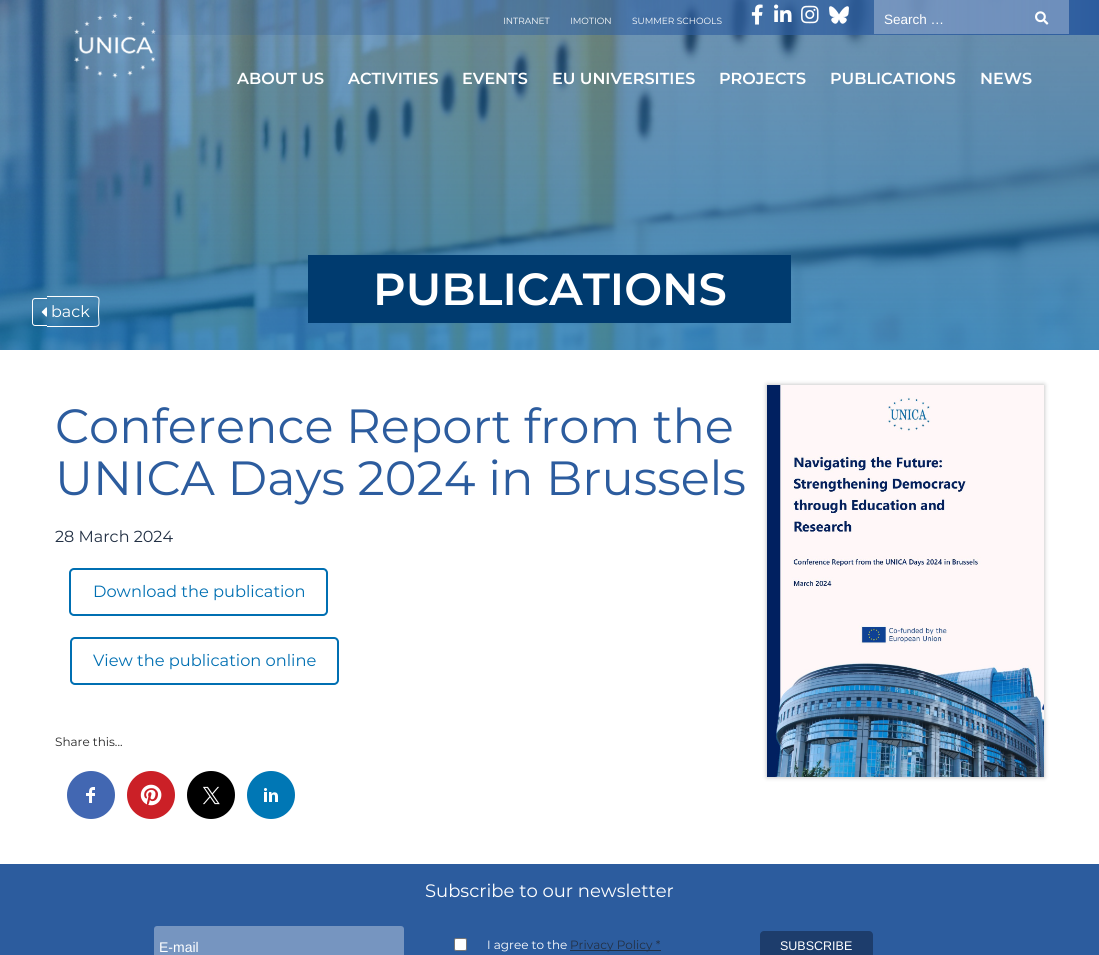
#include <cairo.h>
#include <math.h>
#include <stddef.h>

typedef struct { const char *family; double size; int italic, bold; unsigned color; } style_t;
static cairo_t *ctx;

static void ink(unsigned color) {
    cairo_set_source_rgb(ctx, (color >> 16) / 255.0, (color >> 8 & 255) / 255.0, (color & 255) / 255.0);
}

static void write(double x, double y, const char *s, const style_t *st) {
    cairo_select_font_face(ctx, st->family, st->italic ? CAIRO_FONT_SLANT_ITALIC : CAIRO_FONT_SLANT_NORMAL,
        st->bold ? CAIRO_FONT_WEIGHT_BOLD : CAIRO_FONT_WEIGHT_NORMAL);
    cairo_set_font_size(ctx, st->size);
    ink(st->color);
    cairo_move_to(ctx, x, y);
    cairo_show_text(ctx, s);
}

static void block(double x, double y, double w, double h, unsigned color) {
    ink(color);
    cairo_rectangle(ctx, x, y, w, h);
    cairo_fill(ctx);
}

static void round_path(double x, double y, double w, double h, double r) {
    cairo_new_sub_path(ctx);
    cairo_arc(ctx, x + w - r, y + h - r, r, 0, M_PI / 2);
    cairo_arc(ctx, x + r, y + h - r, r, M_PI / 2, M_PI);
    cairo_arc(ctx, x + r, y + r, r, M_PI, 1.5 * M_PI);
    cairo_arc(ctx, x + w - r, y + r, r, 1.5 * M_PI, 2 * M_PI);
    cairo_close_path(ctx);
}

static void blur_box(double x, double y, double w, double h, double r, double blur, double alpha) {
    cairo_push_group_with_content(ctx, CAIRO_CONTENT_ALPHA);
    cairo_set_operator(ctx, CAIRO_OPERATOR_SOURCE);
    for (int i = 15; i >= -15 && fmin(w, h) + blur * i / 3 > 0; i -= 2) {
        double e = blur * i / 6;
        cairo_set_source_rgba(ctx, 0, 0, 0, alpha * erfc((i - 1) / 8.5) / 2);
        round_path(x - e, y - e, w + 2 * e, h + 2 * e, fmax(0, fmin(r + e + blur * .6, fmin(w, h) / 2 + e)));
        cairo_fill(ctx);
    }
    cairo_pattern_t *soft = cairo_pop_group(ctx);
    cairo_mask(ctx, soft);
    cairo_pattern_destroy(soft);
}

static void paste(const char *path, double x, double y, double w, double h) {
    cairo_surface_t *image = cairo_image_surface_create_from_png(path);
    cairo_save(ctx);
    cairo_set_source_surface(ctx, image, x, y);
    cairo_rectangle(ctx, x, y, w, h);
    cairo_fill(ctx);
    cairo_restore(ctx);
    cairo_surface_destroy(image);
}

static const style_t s1 = {"Montserrat", 9, 0, 0, 0xffffff};
static const style_t s2 = {"Liberation Sans", 13.5, 0, 0, 0xffffff};
static const style_t s3 = {"Montserrat SemiBold", 16, 0, 0, 0xffffff};
static const style_t s4 = {"Montserrat SemiBold", 45, 0, 0, 0xffffff};
static const style_t s5 = {"Montserrat", 16, 0, 0, 0xffffff};
static const style_t s6 = {"Montserrat", 48, 0, 0, 0x2c5c9e};
static const style_t s7 = {"Montserrat", 16, 0, 0, 0x223044};
static const style_t s8 = {"Montserrat", 16.25, 0, 0, 0x006fb2};
static const style_t s9 = {"Montserrat", 12, 0, 0, 0x272727};
static const style_t s10 = {"Montserrat", 18, 0, 0, 0xffffff};
static const style_t s11 = {"Liberation Sans", 14, 0, 0, 0xffffff};
static const style_t s12 = {"Montserrat", 12, 0, 0, 0xffffff};
static const style_t s13 = {"Montserrat", 12, 0, 0, 0x223044};
static const style_t s14 = {"Liberation Sans", 12.5, 0, 0, 0xffffff};

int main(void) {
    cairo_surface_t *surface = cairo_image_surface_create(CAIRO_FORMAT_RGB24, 1099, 955);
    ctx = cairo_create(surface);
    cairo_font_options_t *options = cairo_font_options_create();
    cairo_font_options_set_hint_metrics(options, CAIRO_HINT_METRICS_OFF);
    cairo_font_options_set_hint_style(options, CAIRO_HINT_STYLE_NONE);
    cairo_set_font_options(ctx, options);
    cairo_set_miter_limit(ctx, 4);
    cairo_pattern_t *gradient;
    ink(0xffffff);
    cairo_paint(ctx);
    block(0, 0, 1099, 350, 0x2c5c9e);
    paste("pic7.png", 0, 0, 1099, 350);
    gradient = cairo_pattern_create_linear(550, 350, 550, 0);
    cairo_pattern_add_color_stop_rgba(gradient, 0, 0, 0.435, 0.698, 0.6);
    cairo_pattern_add_color_stop_rgba(gradient, 0.9, 0, 0.357, 0.588, 0.35);
    cairo_set_source(ctx, gradient);
    cairo_pattern_destroy(gradient);
    cairo_rectangle(ctx, 0, 0, 1099, 350);
    cairo_fill(ctx);
    paste("pic6.png", 74, 13, 82, 65);
    gradient = cairo_pattern_create_linear(0, 18, 1099, 17);
    cairo_pattern_add_color_stop_rgba(gradient, 0.02, 0.188, 0.373, 0.627, 0);
    cairo_pattern_add_color_stop_rgba(gradient, 0.98, 0.188, 0.373, 0.627, 1);
    cairo_pattern_add_color_stop_rgba(gradient, 1, 0.173, 0.361, 0.62, 1);
    cairo_set_source(ctx, gradient);
    cairo_pattern_destroy(gradient);
    cairo_rectangle(ctx, 74, 0, 1025, 35);
    cairo_fill(ctx);
    write(503, 24, "INTRANET", &s1);
    write(570, 24, "IMOTION", &s1);
    write(632, 24, "SUMMER SCHOOLS", &s1);
    paste("pic1.png", 751, 4, 12, 21);
    paste("pic2.png", 774, 4, 18, 18);
    paste("pic3.png", 801, 5, 18, 19);
    paste("pic4.png", 829, 6, 20, 18);
    cairo_set_source_rgba(ctx, 1, 1, 1, 0.3);
    cairo_rectangle(ctx, 874, 0, 195, 34);
    cairo_fill(ctx);
    write(884, 24, "Search …", &s2);
    paste("pic5.png", 1035, 11, 14, 14);
    write(237, 84, "ABOUT US", &s3);
    write(348, 84, "ACTIVITIES", &s3);
    write(462, 84, "EVENTS", &s3);
    write(552, 84, "EU UNIVERSITIES", &s3);
    write(719, 84, "PROJECTS", &s3);
    write(830, 84, "PUBLICATIONS", &s3);
    write(980, 84, "NEWS", &s3);
    block(308, 255, 483, 68, 0x003b6f);
    write(373, 305, "PUBLICATIONS", &s4);
    cairo_set_fill_rule(ctx, CAIRO_FILL_RULE_EVEN_ODD);
    cairo_new_path(ctx);
    cairo_move_to(ctx, 35, 298);
    cairo_line_to(ctx, 47, 298);
    cairo_line_to(ctx, 47, 326);
    cairo_line_to(ctx, 35, 326);
    cairo_curve_to(ctx, 33.5, 326, 32, 324.5, 32, 323);
    cairo_line_to(ctx, 32, 301);
    cairo_curve_to(ctx, 32, 299.5, 33.5, 298, 35, 298);
    cairo_close_path(ctx);
    cairo_move_to(ctx, 35, 299);
    cairo_line_to(ctx, 47, 299);
    cairo_line_to(ctx, 47, 325);
    cairo_line_to(ctx, 35, 325);
    cairo_curve_to(ctx, 34, 325, 33, 324, 33, 323);
    cairo_line_to(ctx, 33, 301);
    cairo_curve_to(ctx, 33, 300, 34, 299, 35, 299);
    cairo_close_path(ctx);
    cairo_fill(ctx);
    cairo_new_path(ctx);
    cairo_move_to(ctx, 47, 296);
    cairo_line_to(ctx, 88, 296);
    cairo_curve_to(ctx, 103, 296, 99, 296, 99, 312);
    cairo_curve_to(ctx, 99, 327, 103, 327, 88, 327);
    cairo_line_to(ctx, 47, 327);
    cairo_close_path(ctx);
    cairo_move_to(ctx, 47, 297);
    cairo_line_to(ctx, 88, 297);
    cairo_curve_to(ctx, 102, 297, 98, 296, 98, 312);
    cairo_curve_to(ctx, 98, 327, 102, 326, 88, 326);
    cairo_line_to(ctx, 47, 326);
    cairo_close_path(ctx);
    cairo_fill(ctx);
    paste("pic8.png", 41, 307, 6, 10);
    write(51, 317, "back", &s5);
    write(55, 443, "Conference Report from the", &s6);
    write(55, 495, "UNICA Days 2024 in Brussels", &s6);
    write(55, 542, "28 March 2024", &s7);
    round_path(70, 569, 257, 46, 4);
    ink(0x006fb2);
    cairo_stroke(ctx);
    write(93, 597, "Download the publication", &s8);
    round_path(71, 638, 267, 46, 4);
    cairo_stroke(ctx);
    write(93, 666, "View the publication online", &s8);
    write(55, 746, "Share this...", &s9);
    ink(0x4267b2);
    cairo_new_path(ctx);
    cairo_arc(ctx, 91, 795, 24, 0, 2 * M_PI);
    cairo_fill(ctx);
    paste("pic9.png", 86, 787, 9, 16);
    ink(0xcb2027);
    cairo_arc(ctx, 151, 795, 24, 0, 2 * M_PI);
    cairo_fill(ctx);
    paste("pic10.png", 140, 784, 22, 22);
    ink(0x000000);
    cairo_arc(ctx, 211, 795, 24, 0, 2 * M_PI);
    cairo_fill(ctx);
    paste("pic11.png", 203, 786, 17, 19);
    ink(0x0077b5);
    cairo_arc(ctx, 271, 795, 24, 0, 2 * M_PI);
    cairo_fill(ctx);
    paste("pic12.png", 264, 788, 14, 14);
    ink(0x000000);
    blur_box(767, 385, 277, 392, 0, 2.5, 0.28);
    paste("pic13.png", 767, 385, 277, 392);
    block(0, 864, 1099, 91, 0x2c5c9e);
    write(425, 897, "Subscribe to our newsletter", &s10);
    ink(0x7695c0);
    round_path(154, 926, 250, 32, 3);
    cairo_fill(ctx);
    write(159, 952, "E-mail", &s11);
    round_path(454.5, 938.5, 12, 12, 1.5);
    cairo_fill_preserve(ctx);
    ink(0x767676);
    cairo_set_line_width(ctx, 1);
    cairo_stroke(ctx);
    write(487, 949, "I agree to the", &s12);
    block(570, 950, 91, 1, 0x223044);
    write(570, 949, "Privacy Policy *", &s13);
    ink(0x1d3d6c);
    round_path(760, 931, 113, 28, 4);
    cairo_fill(ctx);
    write(780, 950, "SUBSCRIBE", &s14);
    cairo_surface_write_to_png(surface, "screenshot.png");
    cairo_font_options_destroy(options);
    cairo_destroy(ctx);
    cairo_surface_destroy(surface);
    return 0;
}
